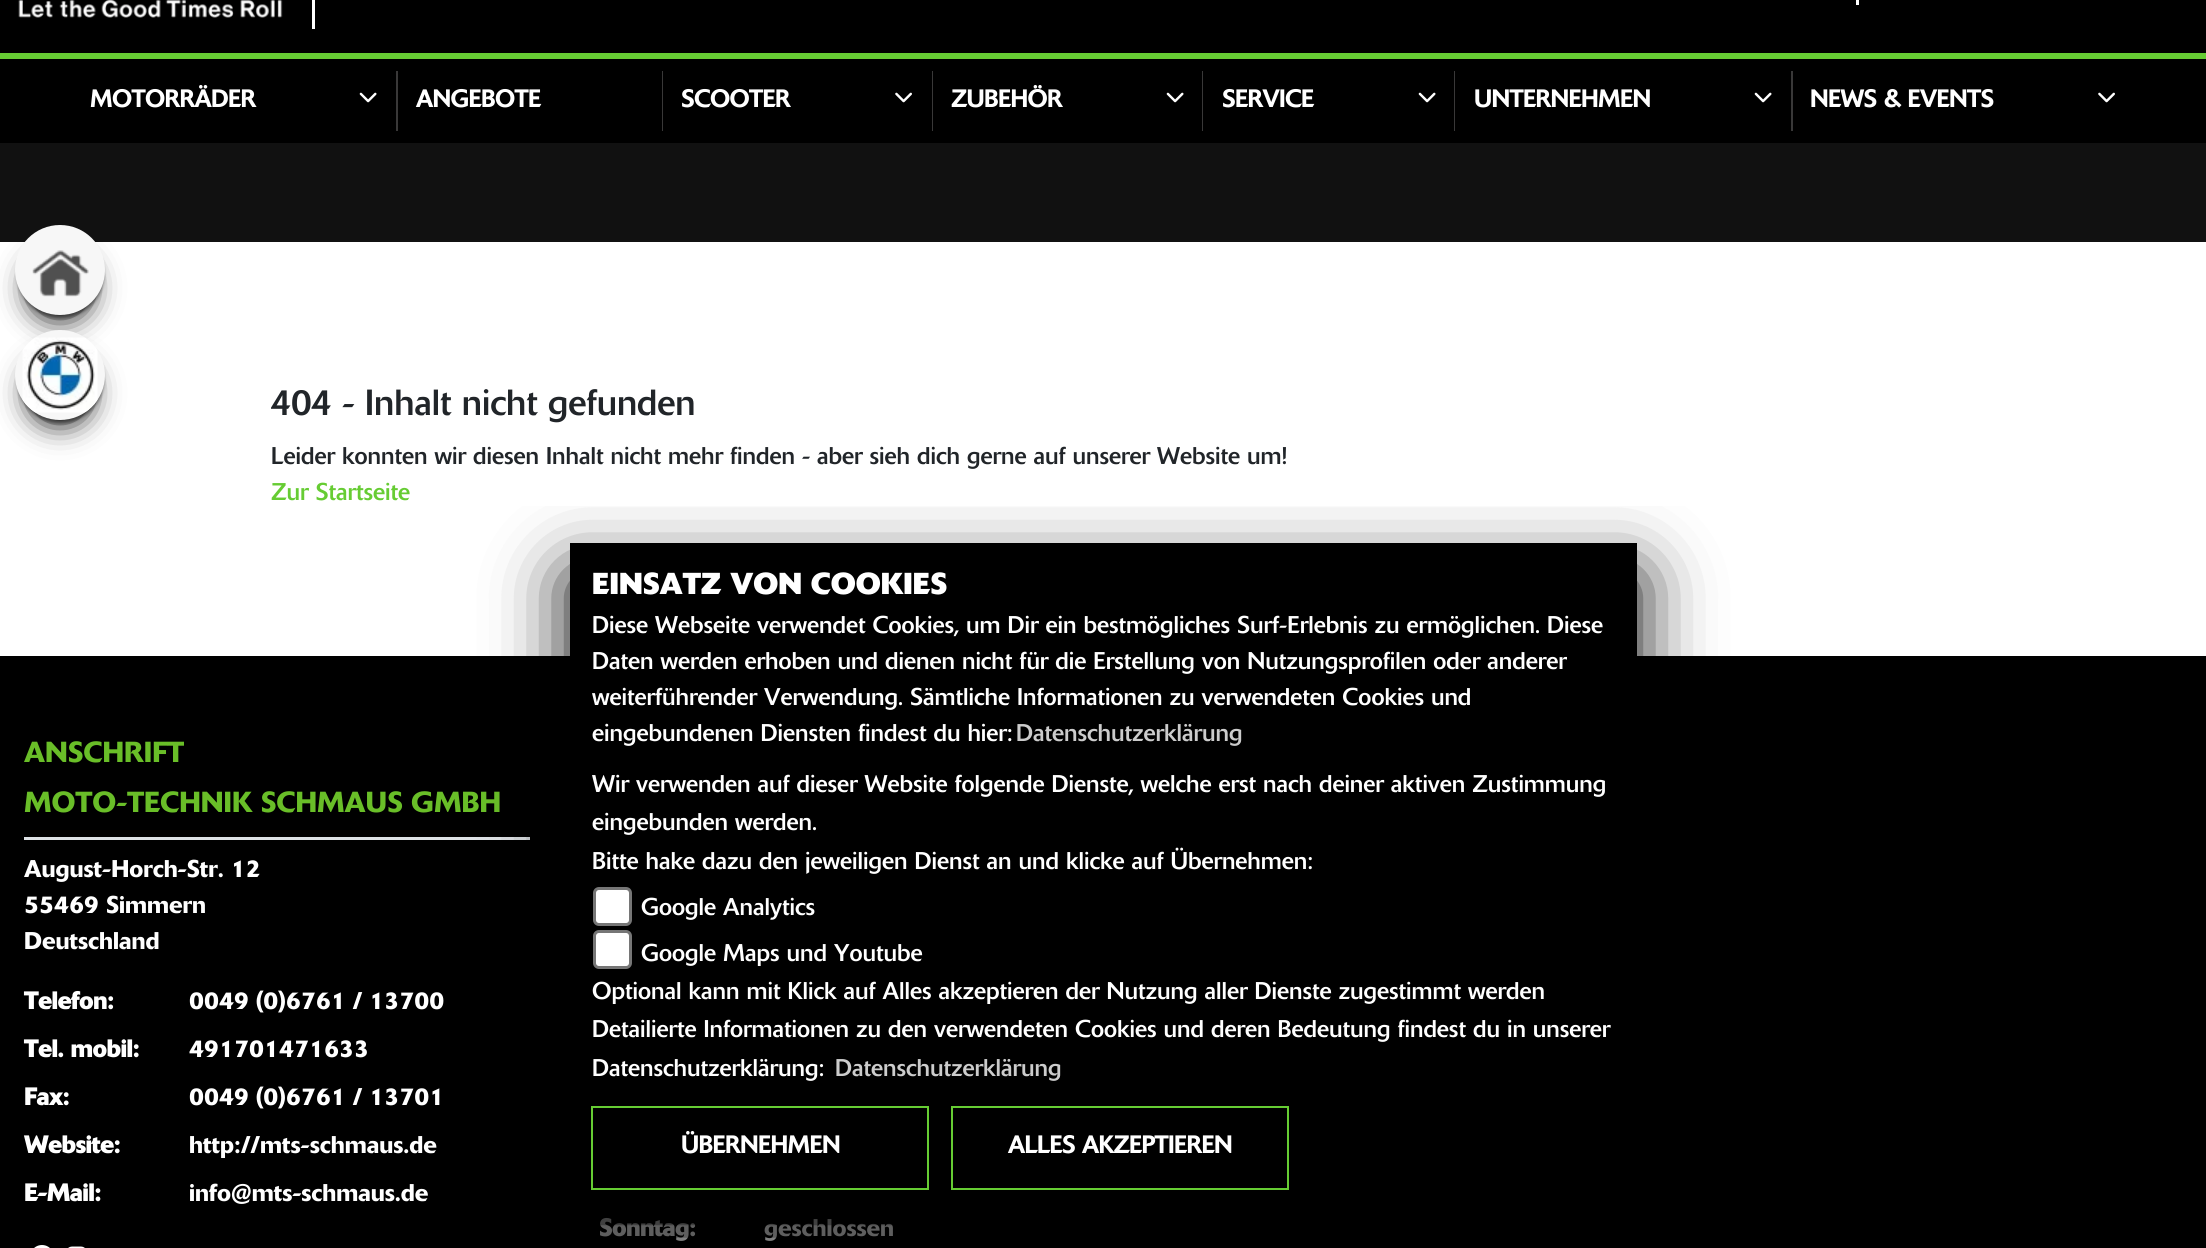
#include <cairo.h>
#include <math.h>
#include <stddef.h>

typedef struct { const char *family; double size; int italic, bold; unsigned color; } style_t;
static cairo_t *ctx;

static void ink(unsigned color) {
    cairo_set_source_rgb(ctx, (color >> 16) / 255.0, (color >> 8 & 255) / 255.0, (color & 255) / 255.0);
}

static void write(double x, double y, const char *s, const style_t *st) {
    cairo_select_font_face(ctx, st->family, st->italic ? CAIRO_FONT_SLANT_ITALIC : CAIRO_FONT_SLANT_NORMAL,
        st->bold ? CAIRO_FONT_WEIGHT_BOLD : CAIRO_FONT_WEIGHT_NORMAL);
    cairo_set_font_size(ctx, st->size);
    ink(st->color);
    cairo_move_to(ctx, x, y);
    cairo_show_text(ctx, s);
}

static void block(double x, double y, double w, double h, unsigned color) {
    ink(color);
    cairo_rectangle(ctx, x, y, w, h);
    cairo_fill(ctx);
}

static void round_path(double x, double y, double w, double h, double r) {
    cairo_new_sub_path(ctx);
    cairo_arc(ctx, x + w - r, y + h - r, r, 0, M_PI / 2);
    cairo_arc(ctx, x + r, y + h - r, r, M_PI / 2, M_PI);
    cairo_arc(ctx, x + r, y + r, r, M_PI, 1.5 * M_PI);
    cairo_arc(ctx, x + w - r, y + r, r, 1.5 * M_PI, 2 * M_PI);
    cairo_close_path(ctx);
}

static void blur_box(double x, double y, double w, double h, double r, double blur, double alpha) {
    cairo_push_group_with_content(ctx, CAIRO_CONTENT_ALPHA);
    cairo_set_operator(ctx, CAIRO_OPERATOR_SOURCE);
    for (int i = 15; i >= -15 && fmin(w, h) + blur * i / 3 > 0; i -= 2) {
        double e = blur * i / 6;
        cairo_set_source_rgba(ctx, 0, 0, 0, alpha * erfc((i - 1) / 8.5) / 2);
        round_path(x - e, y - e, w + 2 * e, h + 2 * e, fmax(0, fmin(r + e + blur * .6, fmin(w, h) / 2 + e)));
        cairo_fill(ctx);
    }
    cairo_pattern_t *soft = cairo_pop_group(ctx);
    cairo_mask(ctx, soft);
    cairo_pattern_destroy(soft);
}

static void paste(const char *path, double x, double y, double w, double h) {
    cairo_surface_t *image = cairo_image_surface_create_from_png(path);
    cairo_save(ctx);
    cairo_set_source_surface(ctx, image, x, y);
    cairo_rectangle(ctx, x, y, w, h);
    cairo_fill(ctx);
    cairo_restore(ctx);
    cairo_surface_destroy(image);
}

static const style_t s1 = {"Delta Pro", 24, 0, 1, 0xffffff};
static const style_t s2 = {"Delta Pro", 36, 0, 0, 0x212529};
static const style_t s3 = {"Delta Pro", 24, 0, 0, 0x212529};
static const style_t s4 = {"Delta Pro", 24, 0, 0, 0x66cc33};
static const style_t s5 = {"Delta Pro Medium", 28.75, 0, 0, 0x69be28};
static const style_t s6 = {"Delta Pro Medium", 24, 0, 0, 0xffffff};
static const style_t s7 = {"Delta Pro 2", 24, 0, 1, 0xffffff};
static const style_t s8 = {"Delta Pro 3", 30, 0, 1, 0xffffff};
static const style_t s9 = {"Delta Pro", 24, 0, 0, 0xffffff};
static const style_t s10 = {"Delta Pro", 24, 0, 0, 0xcccccc};

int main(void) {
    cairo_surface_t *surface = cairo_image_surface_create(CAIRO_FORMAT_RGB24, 2206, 1248);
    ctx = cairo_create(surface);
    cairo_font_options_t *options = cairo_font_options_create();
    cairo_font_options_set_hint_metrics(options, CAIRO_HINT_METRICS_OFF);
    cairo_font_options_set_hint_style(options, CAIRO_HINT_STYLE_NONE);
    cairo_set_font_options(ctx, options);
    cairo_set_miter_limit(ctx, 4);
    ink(0xffffff);
    cairo_paint(ctx);
    block(0, 0, 2206, 143, 0x000000);
    block(0, 53, 2206, 6, 0x66cc33);
    paste("pic1.png", 18, 0, 265, 18);
    block(312, 0, 3, 29, 0xffffff);
    block(1856, 0, 3, 5, 0xffffff);
    block(396, 71, 2, 60, 0x393838);
    write(90, 107, "MOTORRÄDER", &s1);
    paste("pic2.png", 359, 92, 18, 11);
    block(662, 71, 1, 60, 0x393838);
    write(416, 107, "ANGEBOTE", &s1);
    block(932, 71, 1, 60, 0x393838);
    write(681, 107, "SCOOTER", &s1);
    paste("pic3.png", 895, 92, 17, 11);
    block(1202, 71, 1, 60, 0x393838);
    write(951, 107, "ZUBEHÖR", &s1);
    paste("pic2.png", 1166, 92, 18, 11);
    block(1454, 71, 1, 60, 0x393838);
    write(1222, 107, "SERVICE", &s1);
    paste("pic2.png", 1418, 92, 18, 11);
    block(1791, 71, 2, 60, 0x393838);
    write(1474, 107, "UNTERNEHMEN", &s1);
    paste("pic2.png", 1754, 92, 18, 11);
    write(1810, 107, "NEWS & EVENTS", &s1);
    paste("pic3.png", 2098, 92, 17, 11);
    block(0, 143, 2206, 99, 0x111111);
    ink(0x000000);
    blur_box(30, 258, 60, 60, 30, 15, 1);
    blur_box(17, 231, 87, 87, 43.5, 1.5, 0.5);
    ink(0xf7f7f7);
    cairo_arc(ctx, 60, 270, 45, 0, 2 * M_PI);
    cairo_fill(ctx);
    paste("pic4.png", 32, 250, 57, 47);
    ink(0x000000);
    blur_box(30, 363, 60, 60, 30, 15, 1);
    blur_box(17, 336, 87, 87, 43.5, 1.5, 0.5);
    ink(0xf7f7f7);
    cairo_arc(ctx, 60, 375, 45, 0, 2 * M_PI);
    cairo_fill(ctx);
    paste("pic5.png", 22, 337, 76, 76);
    write(271, 415, "404 - Inhalt nicht gefunden", &s2);
    write(271, 464, "Leider konnten wir diesen Inhalt nicht mehr finden - aber sieh dich gerne auf unserer Website um!", &s3);
    write(271, 500, "Zur Startseite", &s4);
    block(0, 656, 2206, 592, 0x000000);
    write(24, 762, "ANSCHRIFT", &s5);
    write(24, 812, "MOTO-TECHNIK SCHMAUS GMBH", &s5);
    block(24, 837, 506, 3, 0xdee2e6);
    write(24, 877, "August-Horch-Str. 12", &s6);
    write(24, 913, "55469 Simmern", &s6);
    write(24, 949, "Deutschland", &s6);
    write(24, 1009, "Telefon:", &s7);
    write(189, 1009, "0049 (0)6761 / 13700", &s6);
    write(24, 1057, "Tel. mobil:", &s7);
    write(189, 1057, "491701471633", &s6);
    write(24, 1105, "Fax:", &s7);
    write(189, 1105, "0049 (0)6761 / 13701", &s6);
    write(24, 1153, "Website:", &s7);
    write(189, 1153, "http://mts-schmaus.de", &s6);
    write(24, 1201, "E-Mail:", &s7);
    write(189, 1201, "info@mts-schmaus.de", &s6);
    paste("pic6.png", 34, 1245, 16, 3);
    paste("pic7.png", 68, 1246, 17, 2);
    write(599, 1236, "Sonntag:", &s7);
    write(764, 1236, "geschlossen", &s6);
    cairo_save(ctx);
    cairo_rectangle(ctx, 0, 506, 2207, 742);
    cairo_clip(ctx);
    ink(0x000000);
    blur_box(570, 576, 1067, 668, 0, 37.5, 1);
    cairo_restore(ctx);
    block(570, 543, 1067, 113, 0x000000);
    write(592, 594, "EINSATZ VON COOKIES", &s8);
    write(592, 633, "Diese Webseite verwendet Cookies, um Dir ein bestmögliches Surf-Erlebnis zu ermöglichen. Diese", &s9);
    write(592, 669, "Daten werden erhoben und dienen nicht für die Erstellung von Nutzungsprofilen oder anderer", &s9);
    write(592, 705, "weiterführender Verwendung. Sämtliche Informationen zu verwendeten Cookies und", &s9);
    write(592, 741, "eingebundenen Diensten findest du hier:", &s9);
    write(1016, 741, "Datenschutzerklärung", &s10);
    write(592, 792, "Wir verwenden auf dieser Website folgende Dienste, welche erst nach deiner aktiven Zustimmung", &s9);
    write(592, 830, "eingebunden werden.", &s9);
    write(592, 869, "Bitte hake dazu den jeweiligen Dienst an und klicke auf Übernehmen:", &s9);
    round_path(594.5, 888.5, 36, 36, 4.5);
    cairo_fill_preserve(ctx);
    ink(0x767676);
    cairo_set_line_width(ctx, 3);
    cairo_stroke(ctx);
    write(641, 915, "Google Analytics", &s9);
    round_path(594.5, 931.5, 36, 36, 4.5);
    cairo_fill_preserve(ctx);
    ink(0x767676);
    cairo_stroke(ctx);
    write(641, 961, "Google Maps und Youtube", &s9);
    write(592, 999, "Optional kann mit Klick auf Alles akzeptieren der Nutzung aller Dienste zugestimmt werden", &s9);
    write(592, 1037, "Detailierte Informationen zu den verwendeten Cookies und deren Bedeutung findest du in unserer", &s9);
    write(592, 1076, "Datenschutzerklärung:", &s9);
    write(835, 1076, "Datenschutzerklärung", &s10);
    cairo_rectangle(ctx, 592, 1107, 336, 82);
    ink(0x66cc33);
    cairo_set_line_width(ctx, 2);
    cairo_stroke(ctx);
    write(681, 1153, "ÜBERNEHMEN", &s1);
    cairo_rectangle(ctx, 952, 1107, 336, 82);
    ink(0x66cc33);
    cairo_stroke(ctx);
    write(1008, 1153, "ALLES AKZEPTIEREN", &s1);
    cairo_surface_write_to_png(surface, "screenshot.png");
    cairo_font_options_destroy(options);
    cairo_destroy(ctx);
    cairo_surface_destroy(surface);
    return 0;
}
